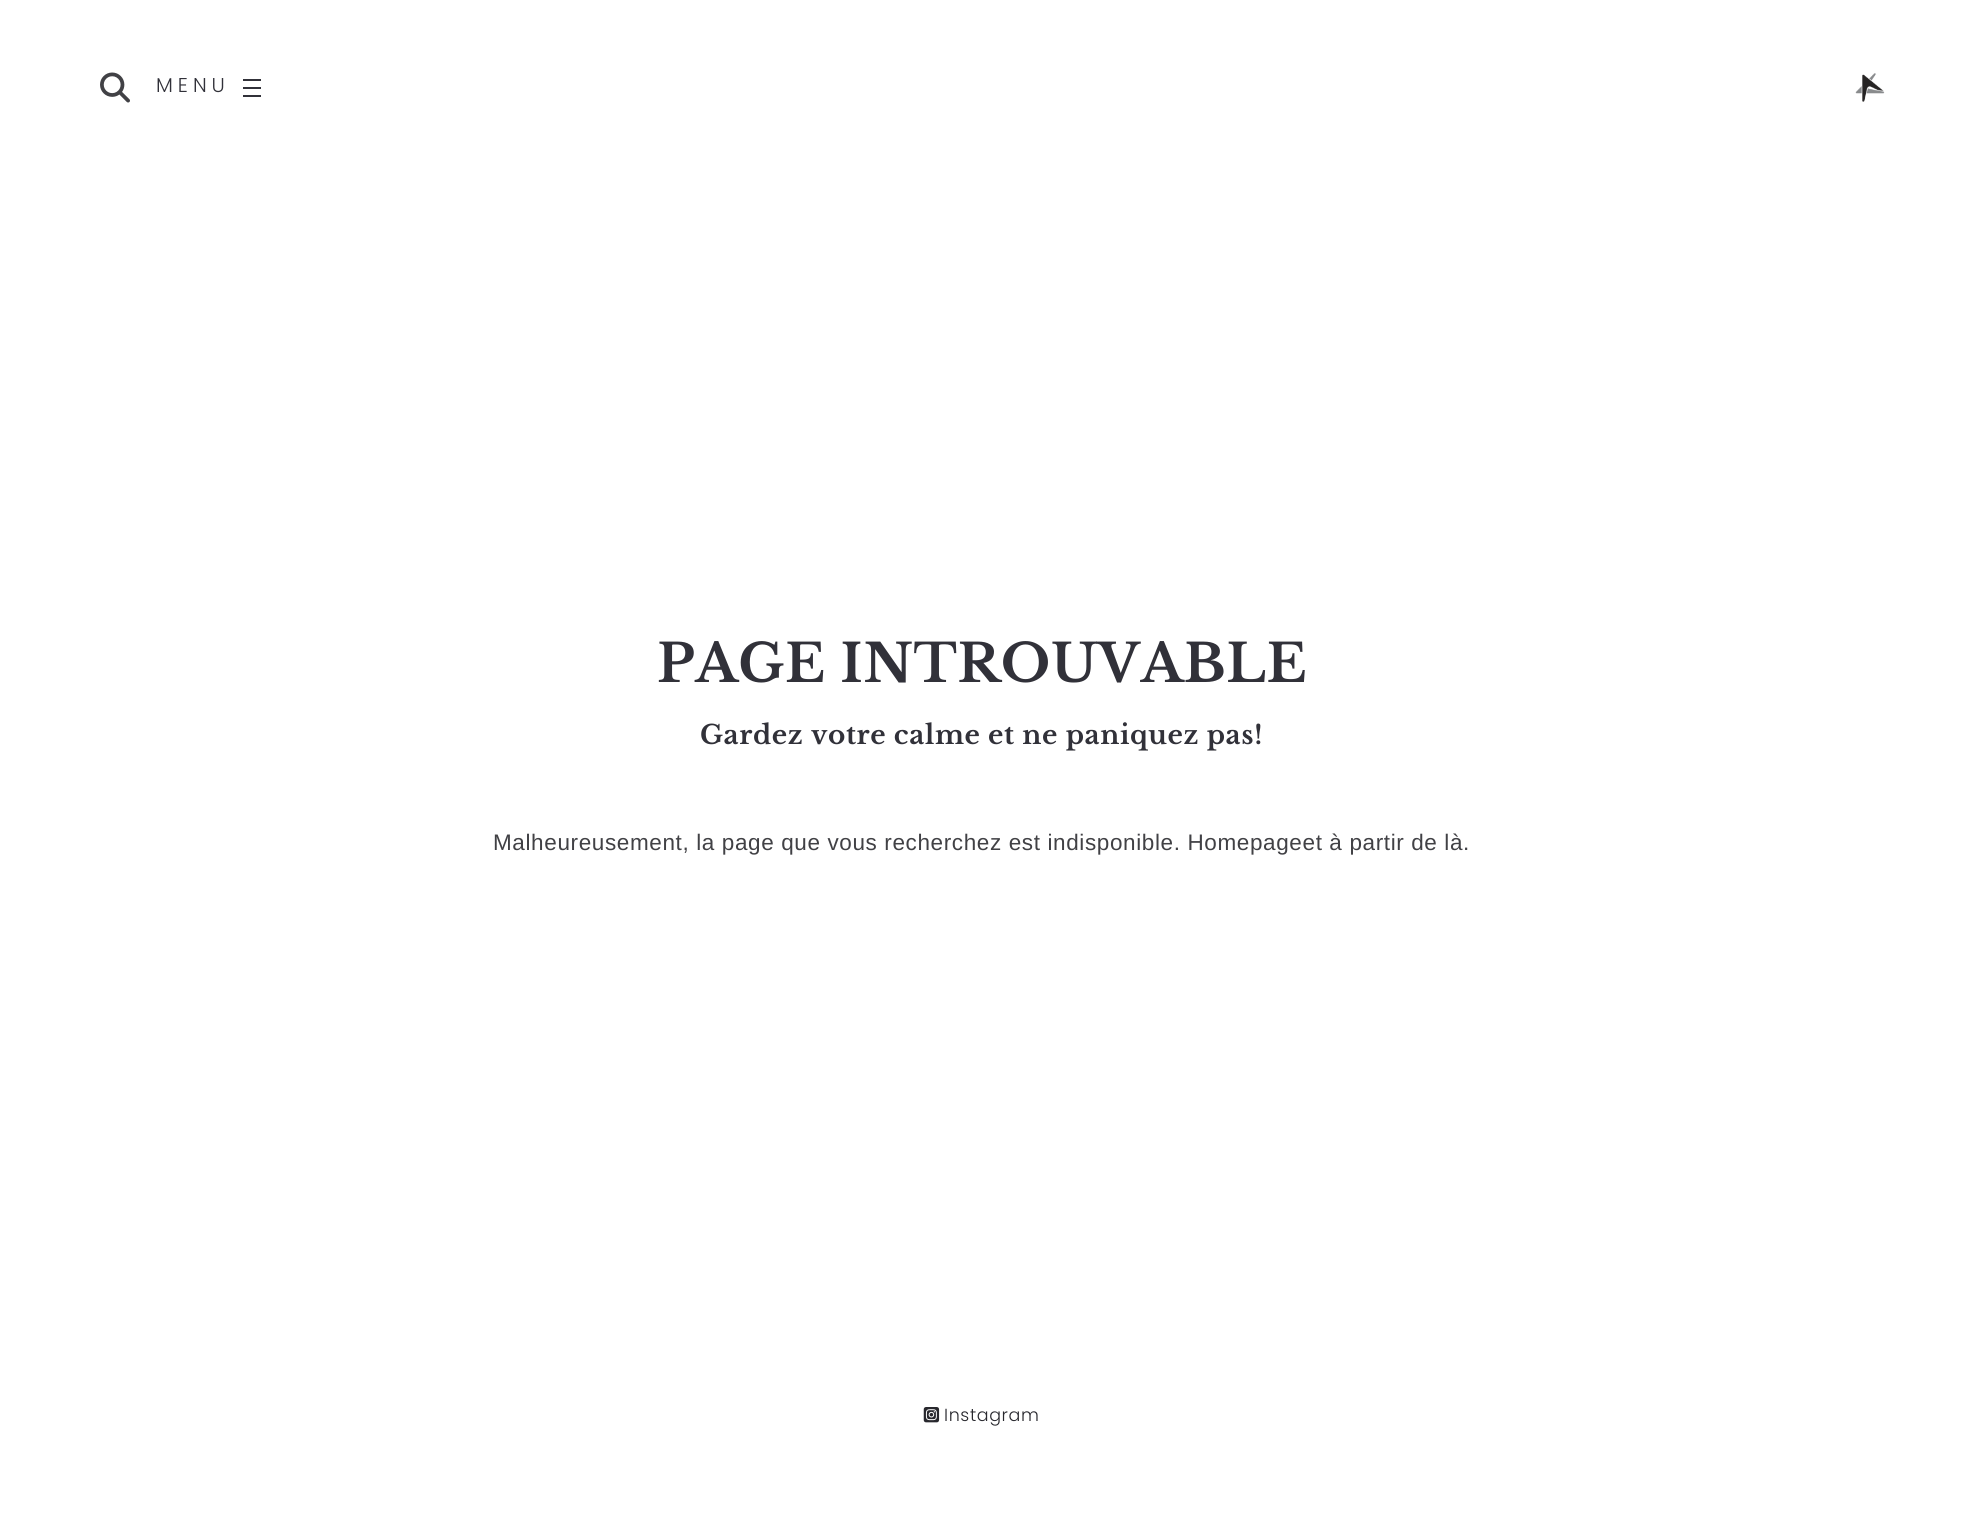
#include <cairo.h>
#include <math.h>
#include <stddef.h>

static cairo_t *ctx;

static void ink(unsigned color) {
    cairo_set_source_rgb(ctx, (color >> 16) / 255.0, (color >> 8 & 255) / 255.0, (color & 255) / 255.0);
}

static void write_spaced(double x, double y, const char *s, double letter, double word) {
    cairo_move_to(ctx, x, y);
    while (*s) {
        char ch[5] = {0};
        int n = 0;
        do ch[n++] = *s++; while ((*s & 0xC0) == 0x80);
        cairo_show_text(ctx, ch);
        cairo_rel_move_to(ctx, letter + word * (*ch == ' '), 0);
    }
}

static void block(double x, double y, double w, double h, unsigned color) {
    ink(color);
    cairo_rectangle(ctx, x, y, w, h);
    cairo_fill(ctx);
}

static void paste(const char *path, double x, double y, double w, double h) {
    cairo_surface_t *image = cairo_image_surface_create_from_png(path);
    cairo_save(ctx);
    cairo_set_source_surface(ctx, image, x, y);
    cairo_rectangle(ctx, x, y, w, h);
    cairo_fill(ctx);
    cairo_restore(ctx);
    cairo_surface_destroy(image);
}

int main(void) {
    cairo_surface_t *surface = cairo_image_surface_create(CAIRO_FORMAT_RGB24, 1963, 1540);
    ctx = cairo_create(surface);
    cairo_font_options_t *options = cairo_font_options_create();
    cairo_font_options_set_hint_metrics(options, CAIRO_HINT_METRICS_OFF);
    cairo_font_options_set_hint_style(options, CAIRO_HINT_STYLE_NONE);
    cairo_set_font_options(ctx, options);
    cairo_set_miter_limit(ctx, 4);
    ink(0xffffff);
    cairo_paint(ctx);
    paste("pic1.png", 100, 72, 30, 31);
    cairo_select_font_face(ctx, "Poppins Light", CAIRO_FONT_SLANT_NORMAL, CAIRO_FONT_WEIGHT_NORMAL);
    cairo_set_font_size(ctx, 20);
    ink(0x313139);
    write_spaced(156, 92, "MENU", 5, 0);
    block(243, 79, 18, 2, 0x313139);
    block(243, 87, 18, 2, 0x313139);
    block(243, 95, 18, 2, 0x313139);
    paste("pic2.png", 1855, 73, 30, 29);
    cairo_select_font_face(ctx, "Libre Baskerville", CAIRO_FONT_SLANT_NORMAL, CAIRO_FONT_WEIGHT_BOLD);
    cairo_set_font_size(ctx, 52.5);
    write_spaced(657, 682, "PAGE INTROUVABLE", 0.62, 0);
    cairo_set_font_size(ctx, 26.25);
    write_spaced(700, 744, "Gardez votre calme et ne paniquez pas!", 0.62, 0);
    cairo_select_font_face(ctx, "Liberation Sans", CAIRO_FONT_SLANT_NORMAL, CAIRO_FONT_WEIGHT_NORMAL);
    cairo_set_font_size(ctx, 22.5);
    ink(0x414145);
    write_spaced(493, 850, "Malheureusement, la page que vous recherchez est indisponible. Homepageet à partir de là.", 0.62, 0);
    paste("pic3.png", 923, 1407, 17, 16);
    cairo_select_font_face(ctx, "Poppins Light", CAIRO_FONT_SLANT_NORMAL, CAIRO_FONT_WEIGHT_NORMAL);
    cairo_set_font_size(ctx, 17.5);
    ink(0x28282e);
    write_spaced(944, 1421, "Instagram", 0.62, 0);
    cairo_surface_write_to_png(surface, "screenshot.png");
    cairo_font_options_destroy(options);
    cairo_destroy(ctx);
    cairo_surface_destroy(surface);
    return 0;
}
